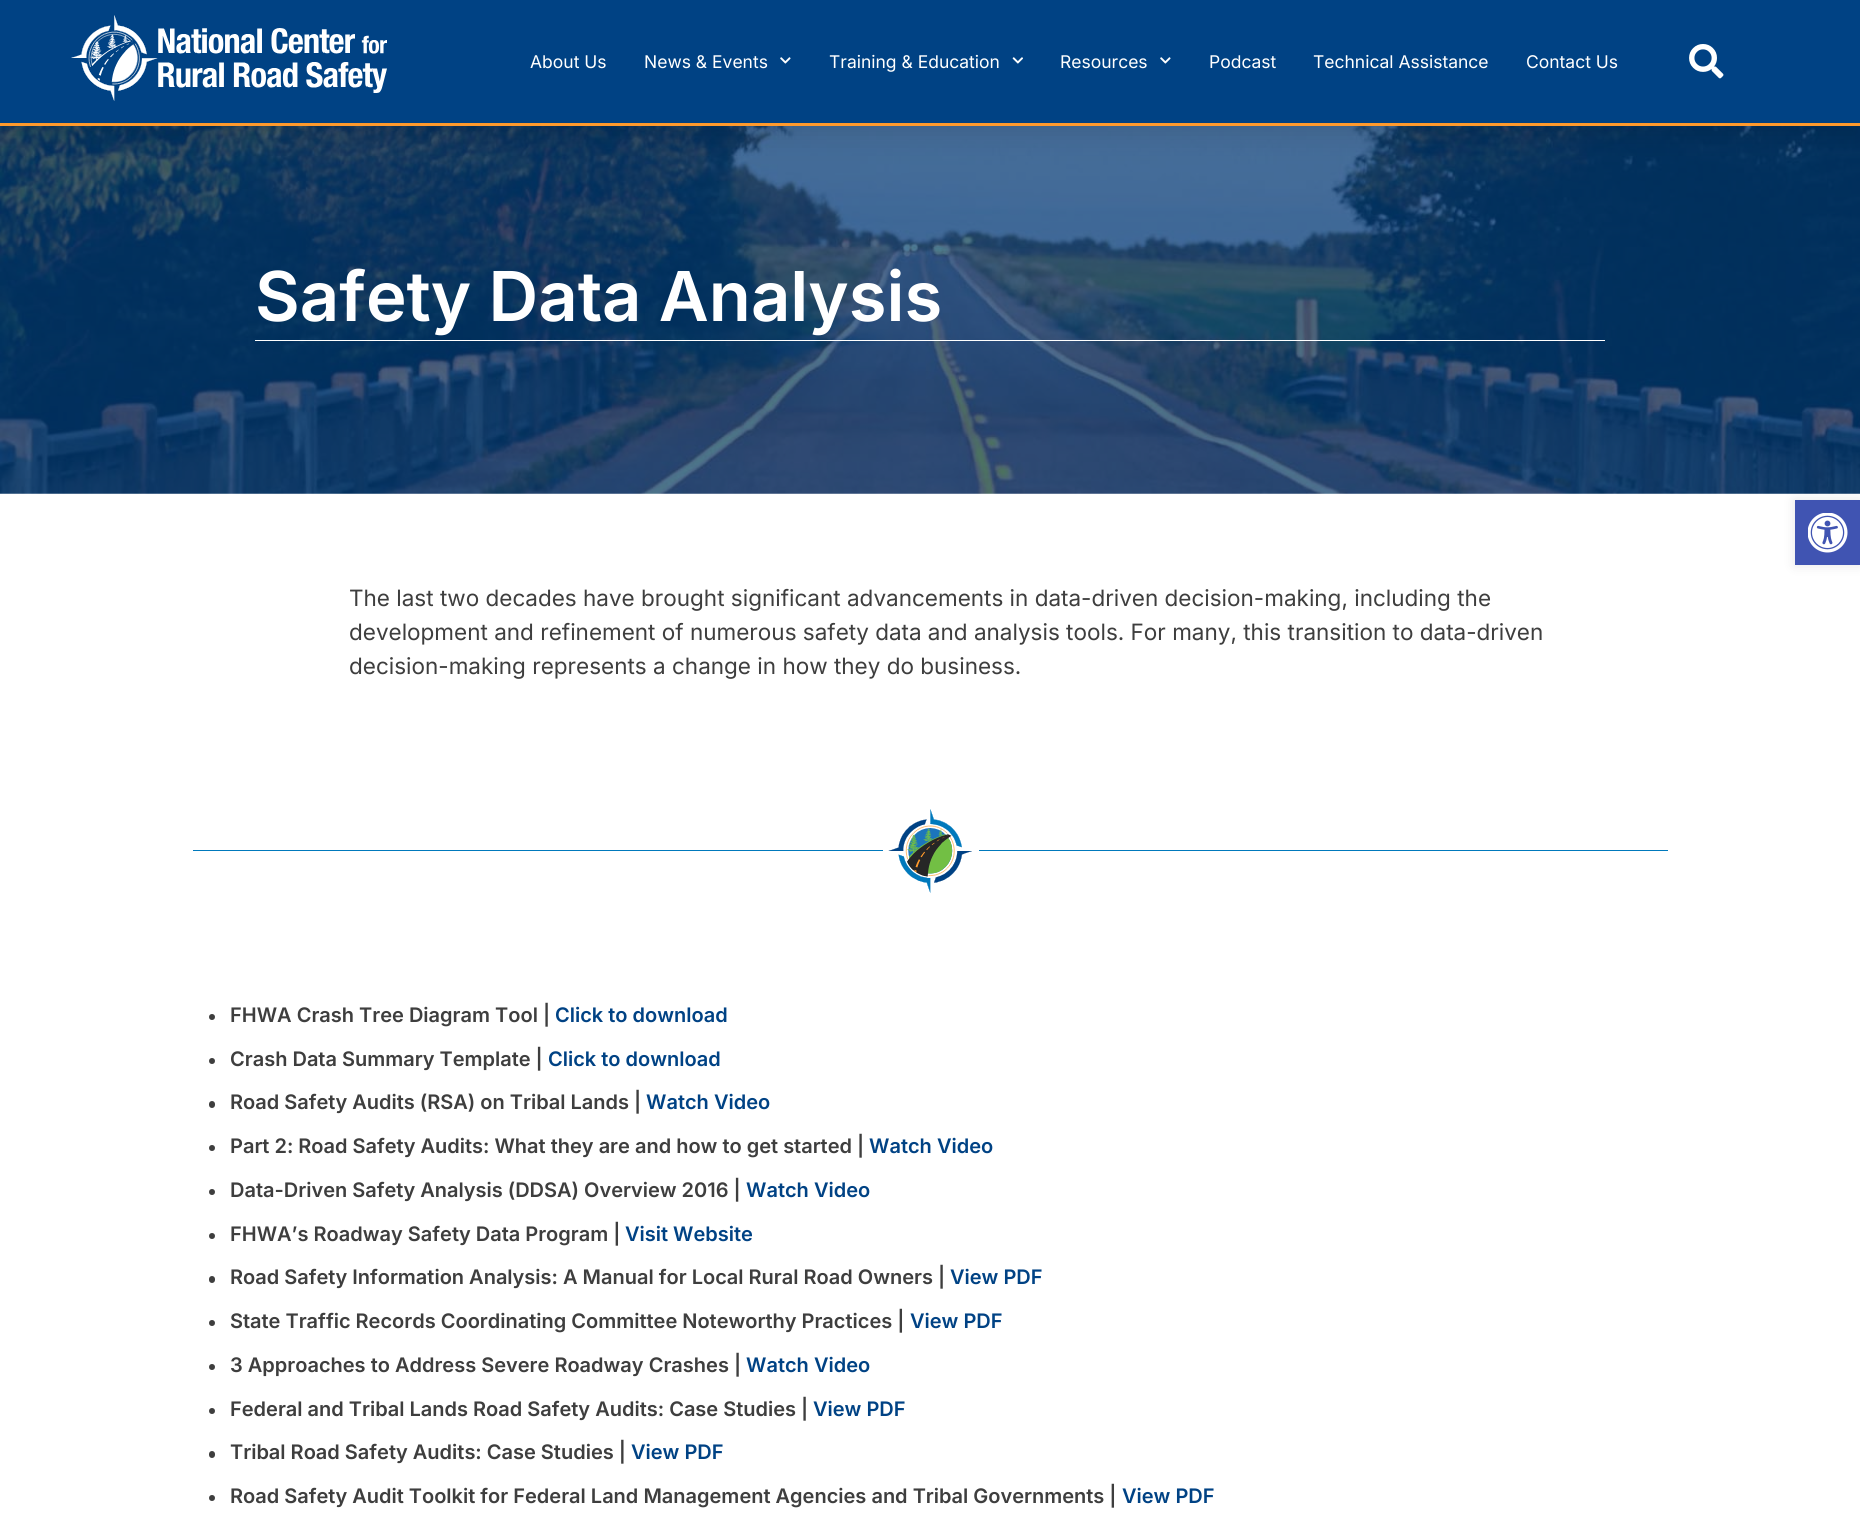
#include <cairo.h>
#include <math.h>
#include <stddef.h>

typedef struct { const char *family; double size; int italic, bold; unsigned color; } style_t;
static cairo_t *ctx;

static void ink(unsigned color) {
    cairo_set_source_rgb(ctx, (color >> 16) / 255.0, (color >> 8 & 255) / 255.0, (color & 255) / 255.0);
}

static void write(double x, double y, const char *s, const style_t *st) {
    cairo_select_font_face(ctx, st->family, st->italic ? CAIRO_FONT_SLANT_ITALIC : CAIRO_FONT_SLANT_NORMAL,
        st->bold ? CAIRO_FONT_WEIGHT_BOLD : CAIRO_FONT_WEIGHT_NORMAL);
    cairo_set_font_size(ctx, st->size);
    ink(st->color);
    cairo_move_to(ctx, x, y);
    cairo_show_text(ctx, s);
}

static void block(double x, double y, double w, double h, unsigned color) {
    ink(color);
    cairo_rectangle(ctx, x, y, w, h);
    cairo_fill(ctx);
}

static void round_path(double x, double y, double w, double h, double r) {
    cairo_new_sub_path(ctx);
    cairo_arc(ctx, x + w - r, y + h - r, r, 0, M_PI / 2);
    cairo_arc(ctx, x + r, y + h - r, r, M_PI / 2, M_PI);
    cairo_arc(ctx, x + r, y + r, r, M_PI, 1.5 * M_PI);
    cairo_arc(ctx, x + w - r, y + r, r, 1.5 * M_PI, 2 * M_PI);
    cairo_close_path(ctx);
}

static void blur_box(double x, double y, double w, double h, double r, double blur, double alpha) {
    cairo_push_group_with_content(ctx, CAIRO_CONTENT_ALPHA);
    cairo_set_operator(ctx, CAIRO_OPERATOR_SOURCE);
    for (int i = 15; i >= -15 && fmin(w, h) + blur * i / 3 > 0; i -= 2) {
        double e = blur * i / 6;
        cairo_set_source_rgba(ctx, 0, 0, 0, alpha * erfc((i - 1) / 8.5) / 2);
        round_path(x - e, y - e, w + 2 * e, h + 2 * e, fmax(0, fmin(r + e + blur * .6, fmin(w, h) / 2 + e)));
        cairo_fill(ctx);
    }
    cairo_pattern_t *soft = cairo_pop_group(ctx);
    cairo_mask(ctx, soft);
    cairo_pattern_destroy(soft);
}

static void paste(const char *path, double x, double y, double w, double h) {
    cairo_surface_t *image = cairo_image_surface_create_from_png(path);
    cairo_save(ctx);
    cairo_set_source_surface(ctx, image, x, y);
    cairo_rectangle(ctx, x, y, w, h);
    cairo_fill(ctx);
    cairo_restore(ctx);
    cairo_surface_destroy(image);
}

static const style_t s1 = {"Inter", 17.5, 0, 0, 0xffffff};
static const style_t s2 = {"Inter SemiBold", 68.75, 0, 0, 0xffffff};
static const style_t s3 = {"Inter", 22.5, 0, 0, 0x3e3e3e};
static const style_t s4 = {"Inter SemiBold", 20, 0, 0, 0x3e3e3e};
static const style_t s5 = {"Inter SemiBold", 20, 0, 0, 0x004284};

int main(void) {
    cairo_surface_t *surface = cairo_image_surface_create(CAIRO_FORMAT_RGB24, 1860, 1527);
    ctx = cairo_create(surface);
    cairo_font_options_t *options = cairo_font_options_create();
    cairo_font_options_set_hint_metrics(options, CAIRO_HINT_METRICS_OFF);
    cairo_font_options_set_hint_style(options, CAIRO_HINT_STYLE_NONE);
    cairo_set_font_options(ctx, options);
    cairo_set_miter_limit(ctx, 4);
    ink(0xffffff);
    cairo_paint(ctx);
    paste("pic5.png", 0, 126, 1860, 368);
    ink(0x000000);
    blur_box(0, 13, 1860, 125, 0, 12.5, 0.1);
    block(0, 0, 1860, 123, 0x004284);
    block(0, 123, 1860, 3, 0xff9a2c);
    paste("pic1.png", 71, 15, 316, 86);
    write(530, 68, "About Us", &s1);
    write(644, 68, "News & Events", &s1);
    paste("pic2.png", 780, 57, 11, 7);
    write(829, 68, "Training & Education", &s1);
    paste("pic3.png", 1012, 57, 11, 7);
    write(1060, 68, "Resources", &s1);
    paste("pic2.png", 1160, 57, 11, 7);
    write(1209, 68, "Podcast", &s1);
    write(1313, 68, "Technical Assistance", &s1);
    write(1526, 68, "Contact Us", &s1);
    paste("pic4.png", 1689, 44, 35, 35);
    write(255, 321, "Safety Data Analysis", &s2);
    block(255, 340, 1350, 1, 0xffffff);
    write(349, 606, "The last two decades have brought significant advancements in data-driven decision-making, including the", &s3);
    write(349, 640, "development and refinement of numerous safety data and analysis tools. For many, this transition to data-driven", &s3);
    write(349, 674, "decision-making represents a change in how they do business.", &s3);
    block(193, 850, 690, 1, 0x0079bc);
    paste("pic6.png", 888, 809, 84, 84);
    block(979, 850, 689, 1, 0x0079bc);
    ink(0x3e3e3e);
    cairo_arc(ctx, 212, 1017, 3, 0, 2 * M_PI);
    cairo_fill(ctx);
    write(230, 1022, "FHWA Crash Tree Diagram Tool |", &s4);
    write(555, 1022, "Click to download", &s5);
    ink(0x3e3e3e);
    cairo_new_path(ctx);
    cairo_arc(ctx, 212, 1061, 3, 0, 2 * M_PI);
    cairo_fill(ctx);
    write(230, 1066, "Crash Data Summary Template |", &s4);
    write(548, 1066, "Click to download", &s5);
    ink(0x3e3e3e);
    round_path(209, 1101, 6, 7, 3);
    cairo_fill(ctx);
    write(230, 1109, "Road Safety Audits (RSA) on Tribal Lands |", &s4);
    write(646, 1109, "Watch Video", &s5);
    ink(0x3e3e3e);
    cairo_new_path(ctx);
    cairo_arc(ctx, 212, 1148, 3, 0, 2 * M_PI);
    cairo_fill(ctx);
    write(230, 1153, "Part 2: Road Safety Audits: What they are and how to get started |", &s4);
    write(869, 1153, "Watch Video", &s5);
    ink(0x3e3e3e);
    cairo_new_path(ctx);
    cairo_arc(ctx, 212, 1192, 3, 0, 2 * M_PI);
    cairo_fill(ctx);
    write(230, 1197, "Data-Driven Safety Analysis (DDSA) Overview 2016 |", &s4);
    write(746, 1197, "Watch Video", &s5);
    ink(0x3e3e3e);
    cairo_new_path(ctx);
    cairo_arc(ctx, 212, 1236, 3, 0, 2 * M_PI);
    cairo_fill(ctx);
    write(230, 1241, "FHWA’s Roadway Safety Data Program |", &s4);
    write(625, 1241, "Visit Website", &s5);
    ink(0x3e3e3e);
    round_path(209, 1276, 6, 7, 3);
    cairo_fill(ctx);
    write(230, 1284, "Road Safety Information Analysis: A Manual for Local Rural Road Owners |", &s4);
    write(950, 1284, "View PDF", &s5);
    ink(0x3e3e3e);
    cairo_new_path(ctx);
    cairo_arc(ctx, 212, 1323, 3, 0, 2 * M_PI);
    cairo_fill(ctx);
    write(230, 1328, "State Traffic Records Coordinating Committee Noteworthy Practices |", &s4);
    write(910, 1328, "View PDF", &s5);
    ink(0x3e3e3e);
    cairo_new_path(ctx);
    cairo_arc(ctx, 212, 1367, 3, 0, 2 * M_PI);
    cairo_fill(ctx);
    write(230, 1372, "3 Approaches to Address Severe Roadway Crashes |", &s4);
    write(746, 1372, "Watch Video", &s5);
    ink(0x3e3e3e);
    cairo_new_path(ctx);
    cairo_arc(ctx, 212, 1411, 3, 0, 2 * M_PI);
    cairo_fill(ctx);
    write(230, 1416, "Federal and Tribal Lands Road Safety Audits: Case Studies |", &s4);
    write(813, 1416, "View PDF", &s5);
    ink(0x3e3e3e);
    round_path(209, 1451, 6, 7, 3);
    cairo_fill(ctx);
    write(230, 1459, "Tribal Road Safety Audits: Case Studies |", &s4);
    write(631, 1459, "View PDF", &s5);
    ink(0x3e3e3e);
    cairo_new_path(ctx);
    cairo_arc(ctx, 212, 1498, 3, 0, 2 * M_PI);
    cairo_fill(ctx);
    write(230, 1503, "Road Safety Audit Toolkit for Federal Land Management Agencies and Tribal Governments |", &s4);
    write(1122, 1503, "View PDF", &s5);
    ink(0x000000);
    blur_box(1795, 500, 65, 65, 0, 6, 0.1);
    block(1795, 500, 65, 65, 0x4054b2);
    paste("pic7.png", 1808, 513, 40, 40);
    cairo_surface_write_to_png(surface, "screenshot.png");
    cairo_font_options_destroy(options);
    cairo_destroy(ctx);
    cairo_surface_destroy(surface);
    return 0;
}
